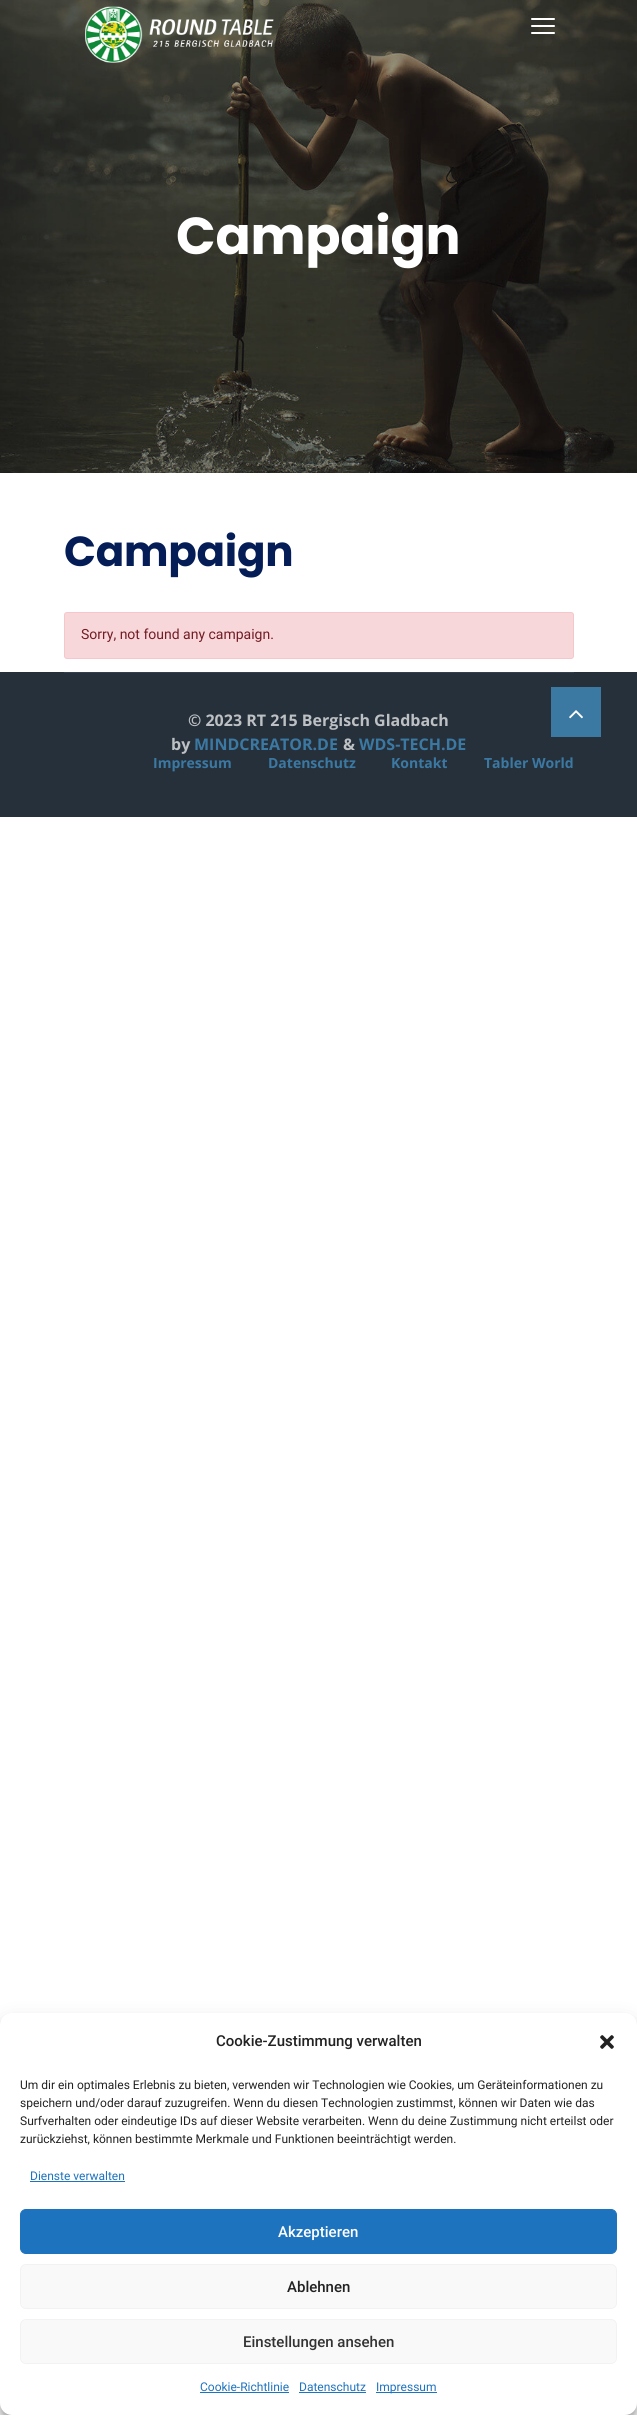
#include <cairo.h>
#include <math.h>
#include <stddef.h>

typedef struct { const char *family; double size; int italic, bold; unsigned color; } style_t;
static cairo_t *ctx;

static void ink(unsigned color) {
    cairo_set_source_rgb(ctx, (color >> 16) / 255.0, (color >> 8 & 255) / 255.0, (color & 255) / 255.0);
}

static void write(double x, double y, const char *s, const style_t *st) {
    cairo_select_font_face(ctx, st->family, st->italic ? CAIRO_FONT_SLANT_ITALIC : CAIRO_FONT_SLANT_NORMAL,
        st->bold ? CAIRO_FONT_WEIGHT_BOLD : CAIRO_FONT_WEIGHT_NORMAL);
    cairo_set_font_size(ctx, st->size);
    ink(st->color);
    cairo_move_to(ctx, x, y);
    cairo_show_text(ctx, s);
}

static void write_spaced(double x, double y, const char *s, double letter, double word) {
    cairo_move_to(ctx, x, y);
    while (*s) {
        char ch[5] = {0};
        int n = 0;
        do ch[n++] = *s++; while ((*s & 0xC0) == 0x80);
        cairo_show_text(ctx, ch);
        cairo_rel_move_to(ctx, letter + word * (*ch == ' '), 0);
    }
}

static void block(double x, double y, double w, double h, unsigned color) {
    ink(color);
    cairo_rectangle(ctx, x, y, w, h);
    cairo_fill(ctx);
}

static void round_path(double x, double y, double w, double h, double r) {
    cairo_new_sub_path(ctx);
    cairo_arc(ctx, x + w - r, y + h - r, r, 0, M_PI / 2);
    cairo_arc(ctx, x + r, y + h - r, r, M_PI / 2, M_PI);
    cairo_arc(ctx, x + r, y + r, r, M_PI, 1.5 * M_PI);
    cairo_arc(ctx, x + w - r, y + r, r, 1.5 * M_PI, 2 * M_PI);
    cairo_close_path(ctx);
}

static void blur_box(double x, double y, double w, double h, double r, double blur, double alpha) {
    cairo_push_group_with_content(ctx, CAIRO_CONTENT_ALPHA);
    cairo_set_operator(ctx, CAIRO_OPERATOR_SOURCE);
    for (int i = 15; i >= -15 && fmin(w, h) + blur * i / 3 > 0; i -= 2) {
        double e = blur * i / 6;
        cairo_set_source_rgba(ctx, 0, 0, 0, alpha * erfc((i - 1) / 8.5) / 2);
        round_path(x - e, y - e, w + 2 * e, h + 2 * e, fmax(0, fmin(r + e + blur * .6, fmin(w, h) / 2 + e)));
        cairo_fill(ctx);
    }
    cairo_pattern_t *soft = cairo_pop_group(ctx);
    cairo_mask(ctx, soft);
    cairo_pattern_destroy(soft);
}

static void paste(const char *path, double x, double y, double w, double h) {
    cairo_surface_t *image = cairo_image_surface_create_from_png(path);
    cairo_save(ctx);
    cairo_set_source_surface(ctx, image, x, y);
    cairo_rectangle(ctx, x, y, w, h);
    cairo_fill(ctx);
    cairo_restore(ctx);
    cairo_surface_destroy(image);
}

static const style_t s1 = {"Roboto", 14, 0, 0, 0x721c24};
static const style_t s2 = {"Open Sans", 16, 0, 1, 0xbec1c4};
static const style_t s3 = {"Open Sans", 16, 0, 1, 0x3b79a3};
static const style_t s4 = {"Open Sans", 14, 0, 1, 0x3b79a3};
static const style_t s5 = {"Roboto Medium", 15, 0, 0, 0x222222};
static const style_t s6 = {"Roboto", 12, 0, 0, 0x222222};
static const style_t s7 = {"Roboto", 12, 0, 0, 0x1e73be};
static const style_t s8 = {"Roboto Medium", 15, 0, 0, 0xffffff};
static const style_t s9 = {"Roboto Medium", 15, 0, 0, 0x333333};

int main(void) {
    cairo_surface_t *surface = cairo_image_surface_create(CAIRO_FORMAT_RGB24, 637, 2415);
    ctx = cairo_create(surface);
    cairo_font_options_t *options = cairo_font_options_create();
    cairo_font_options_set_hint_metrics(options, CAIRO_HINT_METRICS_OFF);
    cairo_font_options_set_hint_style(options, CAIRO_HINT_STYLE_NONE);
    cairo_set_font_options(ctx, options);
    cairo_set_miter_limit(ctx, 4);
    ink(0xffffff);
    cairo_paint(ctx);
    paste("pic2.png", 0, 0, 637, 473);
    paste("pic1.png", 85, 6, 189, 57);
    ink(0xffffff);
    round_path(531, 32, 24, 2, 1);
    cairo_fill(ctx);
    round_path(531, 25, 24, 2, 1);
    cairo_fill(ctx);
    round_path(531, 18, 24, 2, 1);
    cairo_fill(ctx);
    cairo_select_font_face(ctx, "Poppins", CAIRO_FONT_SLANT_NORMAL, CAIRO_FONT_WEIGHT_BOLD);
    cairo_set_font_size(ctx, 52);
    write_spaced(176, 254, "Campaign", -0.25, 0);
    cairo_set_font_size(ctx, 42);
    ink(0x041d57);
    write_spaced(64, 566, "Campaign", -0.25, 0);
    ink(0xf8d7da);
    round_path(64.5, 612.5, 509, 46, 2.5);
    cairo_fill_preserve(ctx);
    ink(0xf5c6cb);
    cairo_set_line_width(ctx, 1);
    cairo_stroke(ctx);
    write(81, 639, "Sorry, not found any campaign.", &s1);
    block(0, 672, 637, 145, 0x26303b);
    block(64, 672, 510, 1, 0x343e4e);
    write(188, 726, "© 2023 RT 215 Bergisch Gladbach", &s2);
    write(171, 750, "by", &s2);
    write(194, 750, "MINDCREATOR.DE", &s3);
    write(343, 750, "&", &s2);
    write(359, 750, "WDS-TECH.DE", &s3);
    write(153, 768, "Impressum", &s4);
    write(268, 768, "Datenschutz", &s4);
    write(391, 768, "Kontakt", &s4);
    write(484, 768, "Tabler World", &s4);
    block(551, 687, 50, 50, 0x3b79a3);
    paste("pic3.png", 569, 710, 14, 9);
    ink(0x000000);
    blur_box(0, 2019, 637, 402, 12, 3, 0.23);
    blur_box(0, 2023, 637, 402, 12, 10, 0.19);
    ink(0xffffff);
    round_path(0, 2013, 637, 402, 12);
    cairo_fill(ctx);
    write(216, 2046, "Cookie-Zustimmung verwalten", &s5);
    paste("pic4.png", 600, 2035, 14, 14);
    write(20, 2089, "Um dir ein optimales Erlebnis zu bieten, verwenden wir Technologien wie Cookies, um Geräteinformationen zu", &s6);
    write(20, 2107, "speichern und/oder darauf zuzugreifen. Wenn du diesen Technologien zustimmst, können wir Daten wie das", &s6);
    write(20, 2125, "Surfverhalten oder eindeutige IDs auf dieser Website verarbeiten. Wenn du deine Zustimmung nicht erteilst oder", &s6);
    write(20, 2143, "zurückziehst, können bestimmte Merkmale und Funktionen beeinträchtigt werden.", &s6);
    write(30, 2180, "Dienste verwalten", &s7);
    block(30, 2181, 95, 1, 0x1e73be);
    round_path(20.5, 2209.5, 596, 44, 5.5);
    cairo_fill_preserve(ctx);
    cairo_stroke(ctx);
    write(278, 2237, "Akzeptieren", &s8);
    ink(0xf9f9f9);
    round_path(20.5, 2264.5, 596, 44, 5.5);
    cairo_fill_preserve(ctx);
    ink(0xf2f2f2);
    cairo_stroke(ctx);
    write(287, 2292, "Ablehnen", &s5);
    ink(0xf9f9f9);
    round_path(20.5, 2319.5, 596, 44, 5.5);
    cairo_fill_preserve(ctx);
    ink(0xf2f2f2);
    cairo_stroke(ctx);
    write(243, 2347, "Einstellungen ansehen", &s9);
    write(200, 2391, "Cookie-Richtlinie", &s7);
    block(200, 2392, 89, 1, 0x1e73be);
    write(299, 2391, "Datenschutz", &s7);
    block(299, 2392, 67, 1, 0x1e73be);
    block(376, 2392, 61, 1, 0x1e73be);
    write(376, 2391, "Impressum", &s7);
    cairo_surface_write_to_png(surface, "screenshot.png");
    cairo_font_options_destroy(options);
    cairo_destroy(ctx);
    cairo_surface_destroy(surface);
    return 0;
}
